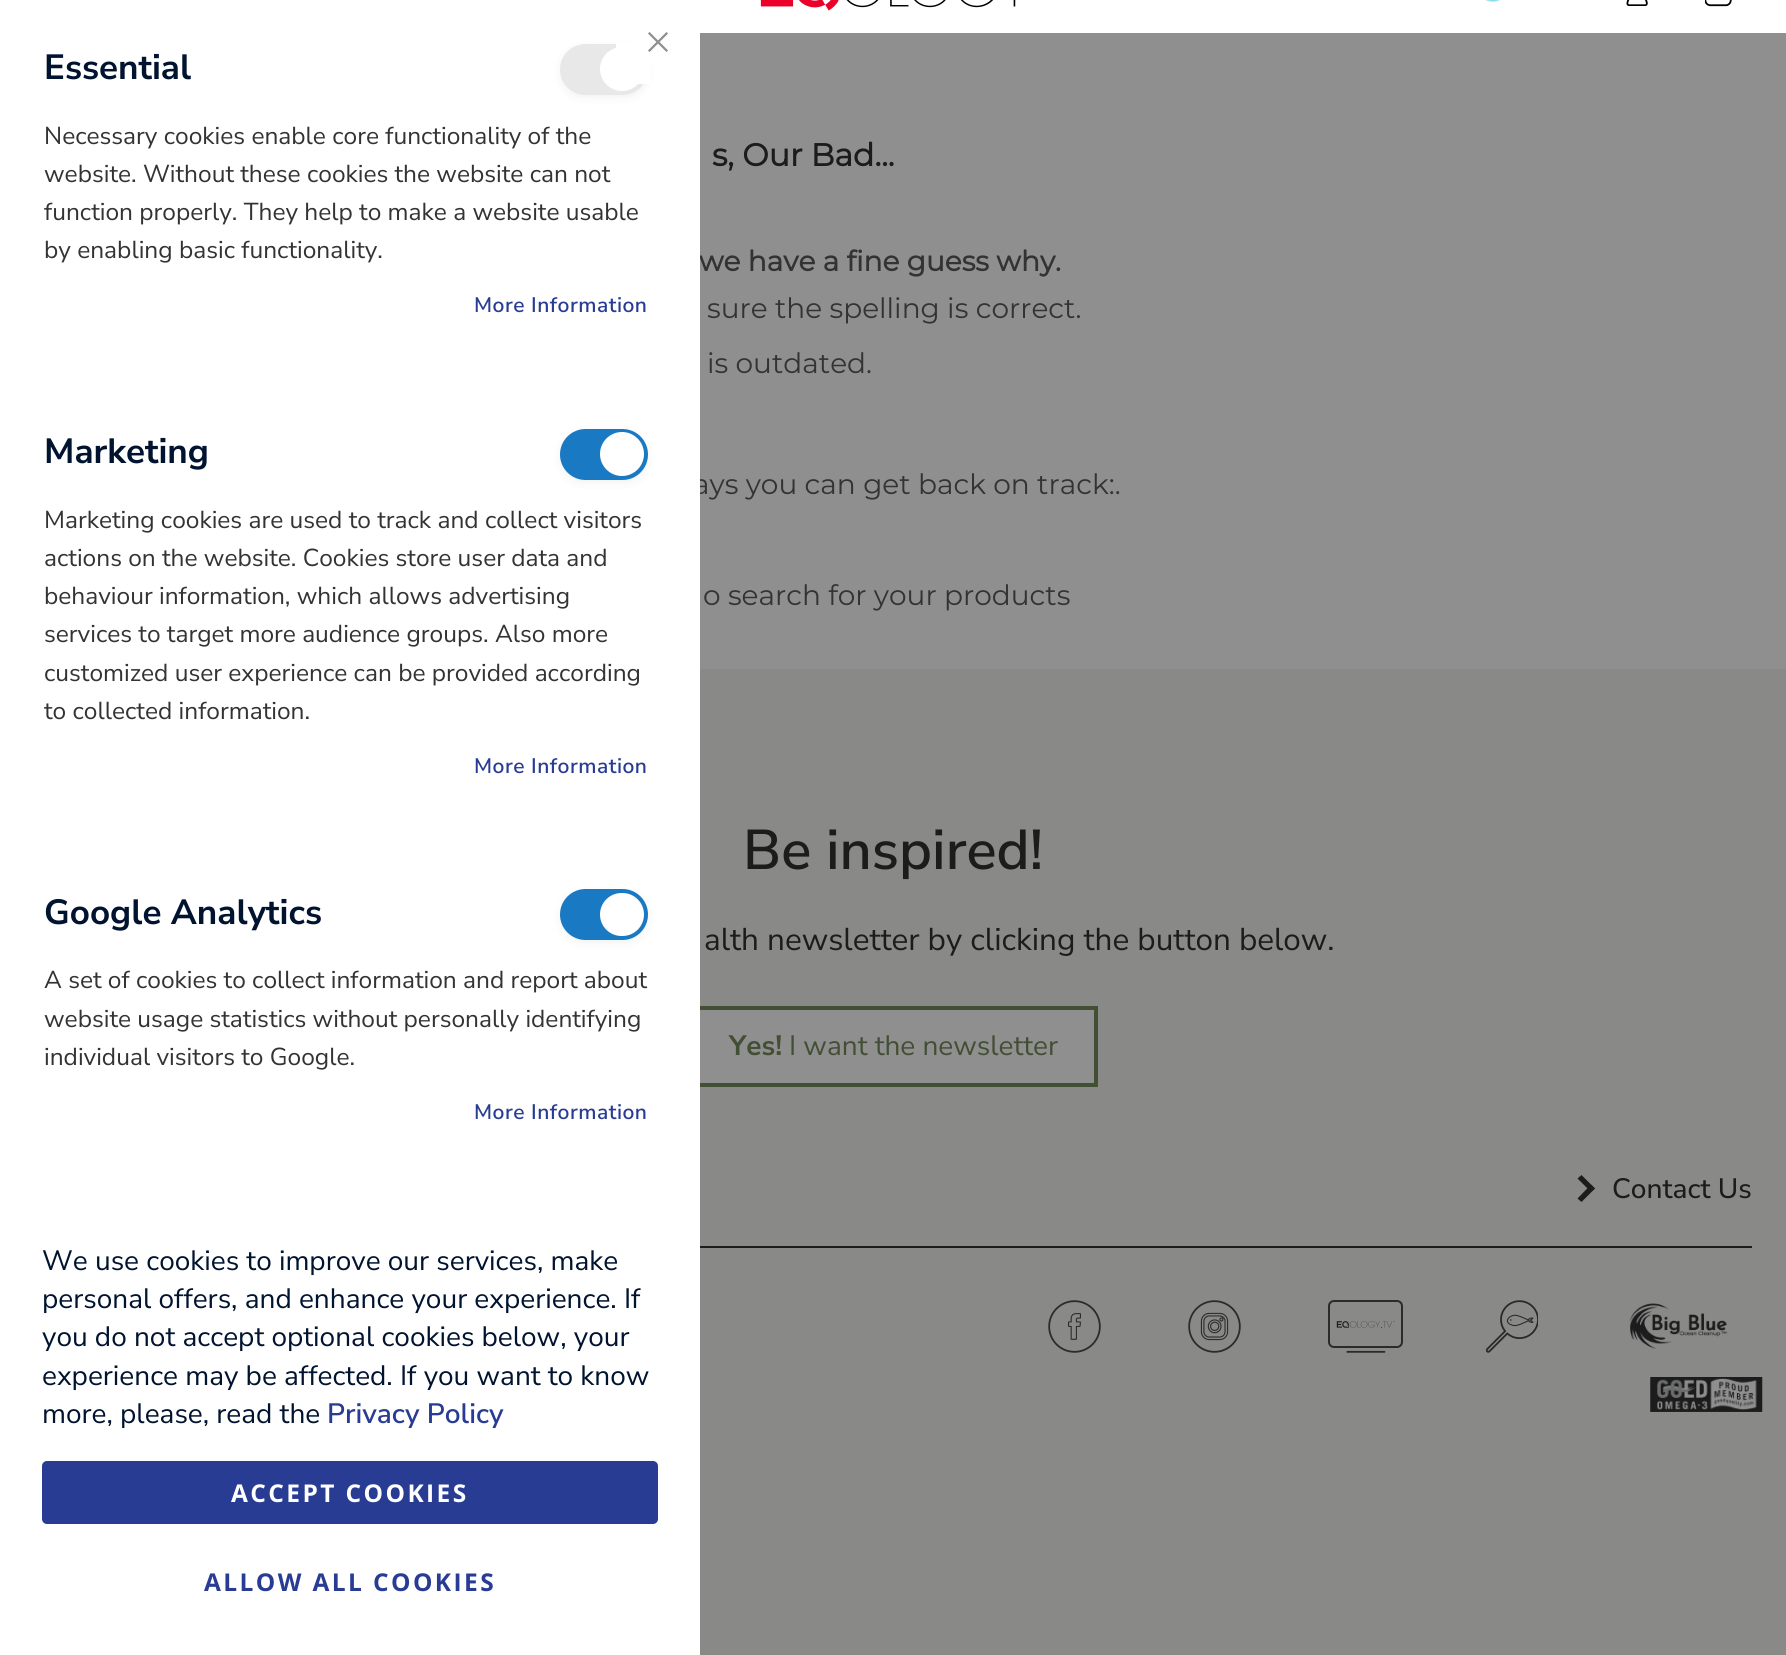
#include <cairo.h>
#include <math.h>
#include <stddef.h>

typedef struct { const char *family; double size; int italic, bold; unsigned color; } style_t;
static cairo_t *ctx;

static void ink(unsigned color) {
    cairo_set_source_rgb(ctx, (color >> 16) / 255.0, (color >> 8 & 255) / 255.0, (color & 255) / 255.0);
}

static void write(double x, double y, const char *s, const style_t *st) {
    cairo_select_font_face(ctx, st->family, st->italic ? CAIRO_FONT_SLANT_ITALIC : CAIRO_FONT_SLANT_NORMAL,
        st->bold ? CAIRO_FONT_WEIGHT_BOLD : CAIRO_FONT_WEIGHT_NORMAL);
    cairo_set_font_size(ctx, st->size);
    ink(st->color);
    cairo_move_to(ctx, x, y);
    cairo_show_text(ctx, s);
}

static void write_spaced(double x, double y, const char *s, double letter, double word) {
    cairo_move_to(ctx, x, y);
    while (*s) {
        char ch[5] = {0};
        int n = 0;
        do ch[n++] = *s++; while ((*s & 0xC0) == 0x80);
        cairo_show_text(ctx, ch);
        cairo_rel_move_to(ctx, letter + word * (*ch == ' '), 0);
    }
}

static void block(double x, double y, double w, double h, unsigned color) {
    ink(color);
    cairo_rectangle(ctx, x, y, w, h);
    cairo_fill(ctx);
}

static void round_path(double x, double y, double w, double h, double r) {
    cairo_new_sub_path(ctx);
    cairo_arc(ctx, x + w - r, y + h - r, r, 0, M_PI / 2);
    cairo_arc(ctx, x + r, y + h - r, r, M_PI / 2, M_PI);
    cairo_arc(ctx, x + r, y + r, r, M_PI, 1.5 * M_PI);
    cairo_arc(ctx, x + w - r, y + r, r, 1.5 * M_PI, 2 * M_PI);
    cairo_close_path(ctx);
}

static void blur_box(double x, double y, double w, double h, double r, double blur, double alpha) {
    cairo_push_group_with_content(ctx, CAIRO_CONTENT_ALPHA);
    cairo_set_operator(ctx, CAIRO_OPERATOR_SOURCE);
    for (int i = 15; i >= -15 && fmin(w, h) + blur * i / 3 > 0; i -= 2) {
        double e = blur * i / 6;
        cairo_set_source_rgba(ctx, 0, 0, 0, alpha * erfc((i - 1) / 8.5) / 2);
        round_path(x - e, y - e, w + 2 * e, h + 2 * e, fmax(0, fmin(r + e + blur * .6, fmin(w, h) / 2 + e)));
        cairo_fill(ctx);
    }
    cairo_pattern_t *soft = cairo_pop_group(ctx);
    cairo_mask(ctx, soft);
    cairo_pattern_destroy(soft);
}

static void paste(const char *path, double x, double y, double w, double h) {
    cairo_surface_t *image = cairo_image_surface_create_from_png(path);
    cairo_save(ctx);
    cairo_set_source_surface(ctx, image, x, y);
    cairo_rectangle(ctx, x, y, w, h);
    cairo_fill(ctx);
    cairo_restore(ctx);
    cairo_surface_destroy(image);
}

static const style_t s1 = {"Montserrat", 28, 0, 1, 0x333333};
static const style_t s2 = {"Montserrat Thin", 28, 0, 0, 0x333333};
static const style_t s3 = {"Nunito Sans", 35, 0, 1, 0x00132f};
static const style_t s4 = {"Nunito Sans", 24.5, 0, 0, 0x333333};
static const style_t s5 = {"Nunito Sans", 28, 0, 0, 0x00132f};
static const style_t s6 = {"Nunito Sans SemiBold", 28, 0, 0, 0x293c94};
static const style_t s7 = {"Montserrat", 31.5, 0, 1, 0x1c1c1c};
static const style_t s8 = {"Nunito Sans SemiBold", 56, 0, 0, 0x1c1c1c};
static const style_t s9 = {"Nunito Sans", 31.5, 0, 0, 0x1c1c1c};
static const style_t s10 = {"Nunito Sans", 28, 0, 1, 0x415034};
static const style_t s11 = {"Nunito Sans", 28, 0, 0, 0x415034};
static const style_t s12 = {"Nunito Sans Medium", 28, 0, 0, 0x1c1c1c};

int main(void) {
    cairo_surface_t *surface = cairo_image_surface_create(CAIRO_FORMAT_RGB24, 1786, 1655);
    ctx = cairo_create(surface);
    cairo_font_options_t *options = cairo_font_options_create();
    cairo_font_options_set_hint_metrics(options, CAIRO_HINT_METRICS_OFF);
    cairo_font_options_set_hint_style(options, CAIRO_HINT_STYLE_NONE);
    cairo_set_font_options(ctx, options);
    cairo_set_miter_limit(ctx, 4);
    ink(0x8f8f8f);
    cairo_paint(ctx);
    write(699, 271, "we have a fine guess why.", &s1);
    write(693, 494, "ays you can get back on track:.", &s2);
    block(0, 0, 700, 1655, 0xffffff);
    ink(0x000000);
    blur_box(560, 47, 88, 51, 25.5, 4.5, 0.05);
    ink(0xe8e8e8);
    round_path(560, 44, 88, 51, 25.5);
    cairo_fill(ctx);
    ink(0xffffff);
    cairo_arc(ctx, 622, 69, 22, 0, 2 * M_PI);
    cairo_fill(ctx);
    block(616, 43, 35, 41, 0xffffff);
    paste("pic1.png", 648, 32, 20, 20);
    write(44, 79, "Essential", &s3);
    write(44, 144, "Necessary cookies enable core functionality of the", &s4);
    write(44, 182, "website. Without these cookies the website can not", &s4);
    write(44, 220, "function properly. They help to make a website usable", &s4);
    write(44, 258, "by enabling basic functionality.", &s4);
    cairo_select_font_face(ctx, "Nunito Sans SemiBold", CAIRO_FONT_SLANT_NORMAL, CAIRO_FONT_WEIGHT_NORMAL);
    cairo_set_font_size(ctx, 21);
    ink(0x293c94);
    write_spaced(474, 312, "More Information", 0.5, 0);
    write(44, 463, "Marketing", &s3);
    ink(0x000000);
    blur_box(560, 432, 88, 51, 25.5, 4.5, 0.05);
    ink(0x1979c3);
    round_path(560, 429, 88, 51, 25.5);
    cairo_fill(ctx);
    ink(0xffffff);
    cairo_arc(ctx, 622, 454, 22, 0, 2 * M_PI);
    cairo_fill(ctx);
    write(44, 528, "Marketing cookies are used to track and collect visitors", &s4);
    write(44, 566, "actions on the website. Cookies store user data and", &s4);
    write(44, 604, "behaviour information, which allows advertising", &s4);
    write(44, 642, "services to target more audience groups. Also more", &s4);
    write(44, 681, "customized user experience can be provided according", &s4);
    write(44, 719, "to collected information.", &s4);
    cairo_select_font_face(ctx, "Nunito Sans SemiBold", CAIRO_FONT_SLANT_NORMAL, CAIRO_FONT_WEIGHT_NORMAL);
    cairo_set_font_size(ctx, 21);
    ink(0x293c94);
    write_spaced(474, 773, "More Information", 0.5, 0);
    write(44, 924, "Google Analytics", &s3);
    ink(0x000000);
    blur_box(560, 893, 88, 50, 25, 4.5, 0.05);
    ink(0x1979c3);
    round_path(560, 889, 88, 51, 25.5);
    cairo_fill(ctx);
    ink(0xffffff);
    round_path(600, 893, 44, 43, 21.5);
    cairo_fill(ctx);
    write(44, 988, "A set of cookies to collect information and report about", &s4);
    write(44, 1027, "website usage statistics without personally identifying", &s4);
    write(44, 1065, "individual visitors to Google.", &s4);
    cairo_select_font_face(ctx, "Nunito Sans SemiBold", CAIRO_FONT_SLANT_NORMAL, CAIRO_FONT_WEIGHT_NORMAL);
    cairo_set_font_size(ctx, 21);
    ink(0x293c94);
    write_spaced(474, 1119, "More Information", 0.5, 0);
    write(42, 1270, "We use cookies to improve our services, make", &s5);
    write(42, 1308, "personal offers, and enhance your experience. If", &s5);
    write(42, 1346, "you do not accept optional cookies below, your", &s5);
    write(42, 1385, "experience may be affected. If you want to know", &s5);
    write(42, 1423, "more, please, read the", &s5);
    write(327, 1423, "Privacy Policy", &s6);
    round_path(42, 1461, 616, 63, 5);
    cairo_fill(ctx);
    cairo_select_font_face(ctx, "Open Sans", CAIRO_FONT_SLANT_NORMAL, CAIRO_FONT_WEIGHT_BOLD);
    cairo_set_font_size(ctx, 24.5);
    ink(0xffffff);
    write_spaced(231, 1502, "ACCEPT COOKIES", 2.4, 0);
    ink(0x293c94);
    write_spaced(204, 1591, "ALLOW ALL COOKIES", 2.4, 0);
    block(700, 0, 1086, 33, 0xffffff);
    paste("pic2.png", 760, 0, 256, 11);
    paste("pic3.png", 1485, 0, 15, 2);
    paste("pic4.png", 1626, 0, 22, 6);
    paste("pic5.png", 1705, 0, 27, 7);
    write(712, 166, "s, Our Bad...", &s7);
    write(707, 318, "sure the spelling is correct.", &s2);
    write(707, 373, "is outdated.", &s2);
    write(703, 605, "o search for your products", &s2);
    block(700, 669, 1086, 986, 0x898a88);
    write(743, 869, "Be inspired!", &s8);
    write(704, 950, "alth newsletter by clicking the button below.", &s9);
    block(700, 1010, 394, 73, 0x8f8f8f);
    block(700, 1006, 397, 4, 0x415034);
    block(700, 1083, 82, 4, 0x415034);
    block(1094, 1006, 4, 81, 0x415034);
    block(782, 1083, 315, 4, 0x415034);
    write(729, 1055, "Yes!", &s10);
    write(789, 1055, "I want the newsletter", &s11);
    block(700, 1246, 1052, 2, 0x1c1c1c);
    cairo_new_path(ctx);
    cairo_move_to(ctx, 1577.5, 1178.5);
    cairo_line_to(ctx, 1581.5, 1175);
    cairo_line_to(ctx, 1595, 1188.5);
    cairo_line_to(ctx, 1591, 1192);
    cairo_close_path(ctx);
    cairo_fill(ctx);
    cairo_new_path(ctx);
    cairo_move_to(ctx, 1577.5, 1198.5);
    cairo_line_to(ctx, 1591, 1184.5);
    cairo_line_to(ctx, 1595, 1188.5);
    cairo_line_to(ctx, 1581.5, 1202);
    cairo_close_path(ctx);
    cairo_fill(ctx);
    write(1612, 1198, "Contact Us", &s12);
    paste("pic6.png", 1048, 1300, 53, 53);
    paste("pic7.png", 1188, 1300, 53, 53);
    paste("pic8.png", 1328, 1300, 75, 53);
    paste("pic9.png", 1486, 1300, 52, 53);
    paste("pic10.png", 1629, 1303, 98, 46);
    paste("pic11.png", 1650, 1377, 113, 35);
    cairo_surface_write_to_png(surface, "screenshot.png");
    cairo_font_options_destroy(options);
    cairo_destroy(ctx);
    cairo_surface_destroy(surface);
    return 0;
}
